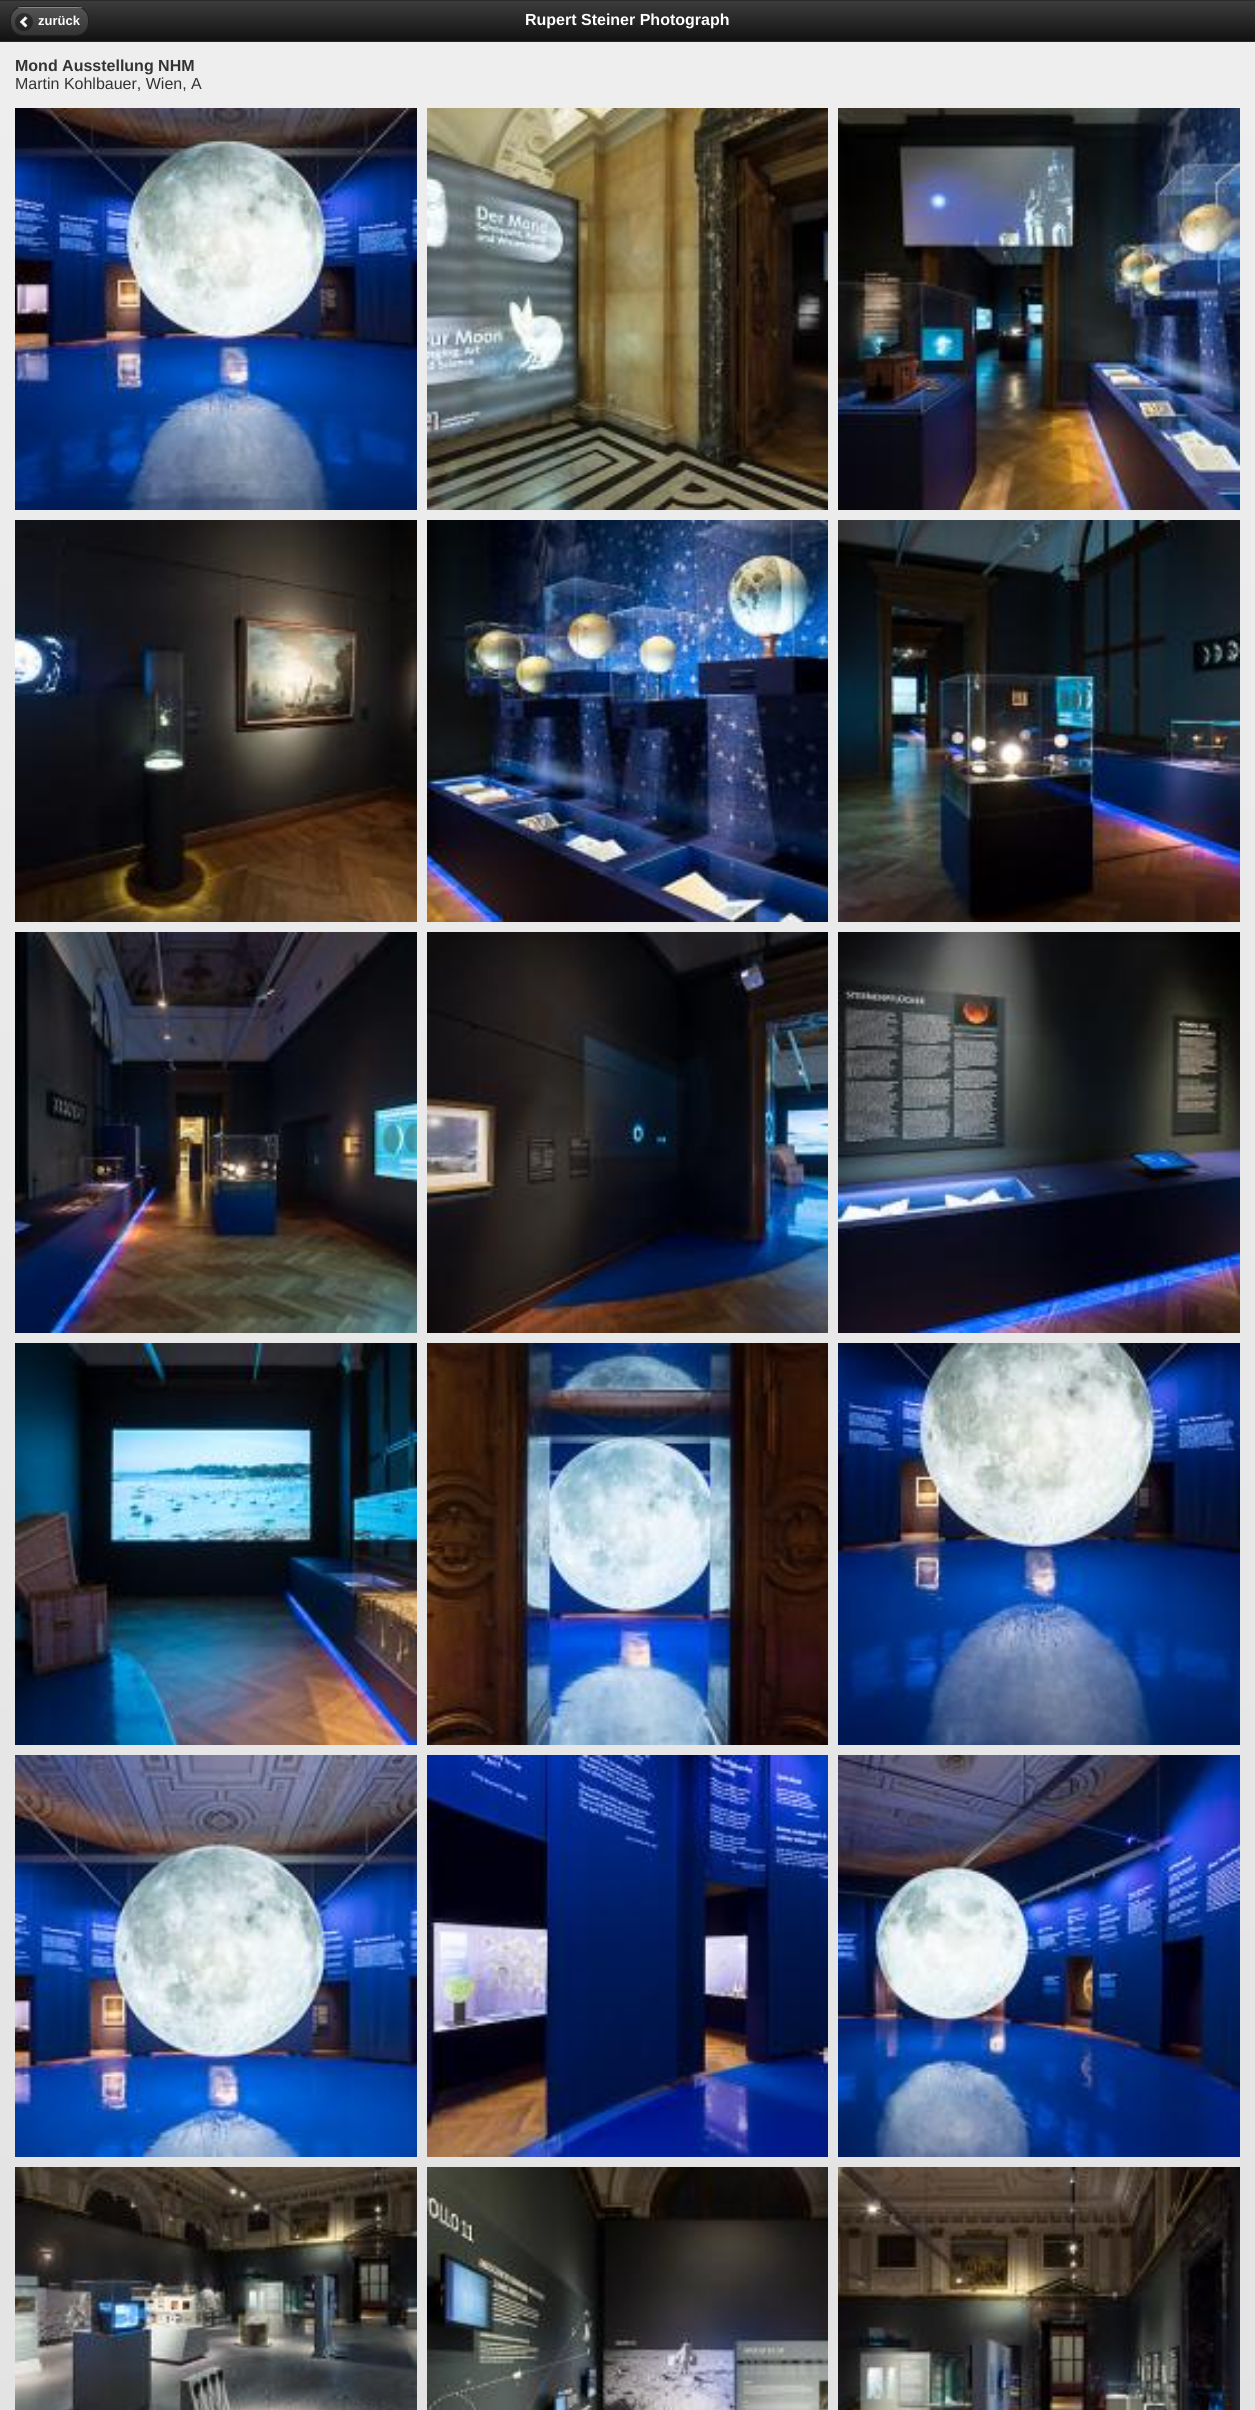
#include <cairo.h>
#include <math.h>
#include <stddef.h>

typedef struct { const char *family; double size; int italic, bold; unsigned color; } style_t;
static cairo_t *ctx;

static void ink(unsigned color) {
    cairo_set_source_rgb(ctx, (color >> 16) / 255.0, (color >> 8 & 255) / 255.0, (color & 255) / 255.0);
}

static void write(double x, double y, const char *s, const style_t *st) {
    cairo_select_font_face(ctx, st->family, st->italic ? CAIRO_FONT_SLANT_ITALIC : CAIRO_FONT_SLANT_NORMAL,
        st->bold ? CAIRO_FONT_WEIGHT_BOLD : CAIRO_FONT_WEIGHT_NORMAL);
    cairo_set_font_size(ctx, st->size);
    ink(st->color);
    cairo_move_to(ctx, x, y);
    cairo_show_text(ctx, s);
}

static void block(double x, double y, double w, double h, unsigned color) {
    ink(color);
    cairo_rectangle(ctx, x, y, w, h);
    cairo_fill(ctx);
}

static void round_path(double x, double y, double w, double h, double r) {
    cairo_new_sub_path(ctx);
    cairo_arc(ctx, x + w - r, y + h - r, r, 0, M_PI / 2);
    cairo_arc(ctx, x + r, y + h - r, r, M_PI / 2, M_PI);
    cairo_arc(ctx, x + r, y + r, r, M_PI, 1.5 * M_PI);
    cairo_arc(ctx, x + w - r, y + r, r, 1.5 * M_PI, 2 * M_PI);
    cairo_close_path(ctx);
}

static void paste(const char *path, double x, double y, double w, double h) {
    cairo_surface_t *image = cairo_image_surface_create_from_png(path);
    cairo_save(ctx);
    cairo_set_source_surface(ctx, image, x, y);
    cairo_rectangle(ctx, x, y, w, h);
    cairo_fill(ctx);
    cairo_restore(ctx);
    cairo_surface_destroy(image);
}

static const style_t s1 = {"Liberation Sans", 13, 0, 1, 0xffffff};
static const style_t s2 = {"Liberation Sans", 16, 0, 1, 0xffffff};
static const style_t s3 = {"Liberation Sans", 16, 0, 1, 0x333333};
static const style_t s4 = {"Liberation Sans", 16, 0, 0, 0x333333};

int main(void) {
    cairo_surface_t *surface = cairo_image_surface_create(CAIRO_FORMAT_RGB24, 1255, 2410);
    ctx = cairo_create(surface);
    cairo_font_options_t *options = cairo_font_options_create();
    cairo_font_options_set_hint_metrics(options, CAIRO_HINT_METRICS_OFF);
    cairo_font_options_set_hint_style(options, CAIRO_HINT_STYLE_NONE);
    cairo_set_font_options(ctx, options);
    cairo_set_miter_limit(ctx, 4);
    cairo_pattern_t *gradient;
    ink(0xffffff);
    cairo_paint(ctx);
    gradient = cairo_pattern_create_linear(628, 1, 628, 41);
    cairo_pattern_add_color_stop_rgba(gradient, 0, 0.235, 0.235, 0.235, 1);
    cairo_pattern_add_color_stop_rgba(gradient, 1, 0.067, 0.067, 0.067, 1);
    cairo_set_source(ctx, gradient);
    cairo_pattern_destroy(gradient);
    cairo_rectangle(ctx, 0, 1, 1255, 40);
    cairo_fill(ctx);
    block(0, 0, 1255, 1, 0x2a2a2a);
    block(0, 41, 1255, 1, 0x2a2a2a);
    gradient = cairo_pattern_create_linear(50, 7, 50, 35);
    cairo_pattern_add_color_stop_rgba(gradient, 0, 0.333, 0.333, 0.333, 1);
    cairo_pattern_add_color_stop_rgba(gradient, 1, 0.2, 0.2, 0.2, 1);
    cairo_set_source(ctx, gradient);
    cairo_pattern_destroy(gradient);
    round_path(11, 7, 77, 28, 12);
    cairo_fill(ctx);
    round_path(10.5, 6.5, 78, 29, 12.5);
    ink(0x222222);
    cairo_set_line_width(ctx, 1);
    cairo_stroke(ctx);
    cairo_set_source_rgba(ctx, 1, 1, 1, 0.3);
    cairo_rectangle(ctx, 18, 7, 64, 1);
    cairo_fill(ctx);
    cairo_set_source_rgba(ctx, 0, 0, 0, 0.4);
    cairo_arc(ctx, 24, 22, 9, 0, 2 * M_PI);
    cairo_fill(ctx);
    paste("pic1.png", 20, 16, 8, 12);
    write(38, 25, "zurück", &s1);
    write(525, 25, "Rupert Steiner Photograph", &s2);
    gradient = cairo_pattern_create_linear(627, 42, 628, 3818);
    cairo_pattern_add_color_stop_rgba(gradient, 0, 0.933, 0.933, 0.933, 1);
    cairo_pattern_add_color_stop_rgba(gradient, 1, 0.867, 0.867, 0.867, 1);
    cairo_set_source(ctx, gradient);
    cairo_pattern_destroy(gradient);
    cairo_rectangle(ctx, 0, 42, 1255, 2368);
    cairo_fill(ctx);
    write(15, 71, "Mond Ausstellung NHM", &s3);
    write(15, 89, "Martin Kohlbauer, Wien, A", &s4);
    paste("pic2.png", 15, 108, 402, 402);
    paste("pic3.png", 427, 108, 401, 402);
    paste("pic4.png", 838, 108, 402, 402);
    paste("pic5.png", 15, 520, 402, 402);
    paste("pic6.png", 427, 520, 401, 402);
    paste("pic7.png", 838, 520, 402, 402);
    paste("pic8.png", 15, 932, 402, 401);
    paste("pic9.png", 427, 932, 401, 401);
    paste("pic10.png", 838, 932, 402, 401);
    paste("pic11.png", 15, 1343, 402, 402);
    paste("pic12.png", 427, 1343, 401, 402);
    paste("pic13.png", 838, 1343, 402, 402);
    paste("pic14.png", 15, 1755, 402, 402);
    paste("pic15.png", 427, 1755, 401, 402);
    paste("pic16.png", 838, 1755, 402, 402);
    paste("pic17.png", 15, 2167, 402, 243);
    paste("pic18.png", 427, 2167, 401, 243);
    paste("pic19.png", 838, 2167, 402, 243);
    cairo_surface_write_to_png(surface, "screenshot.png");
    cairo_font_options_destroy(options);
    cairo_destroy(ctx);
    cairo_surface_destroy(surface);
    return 0;
}
